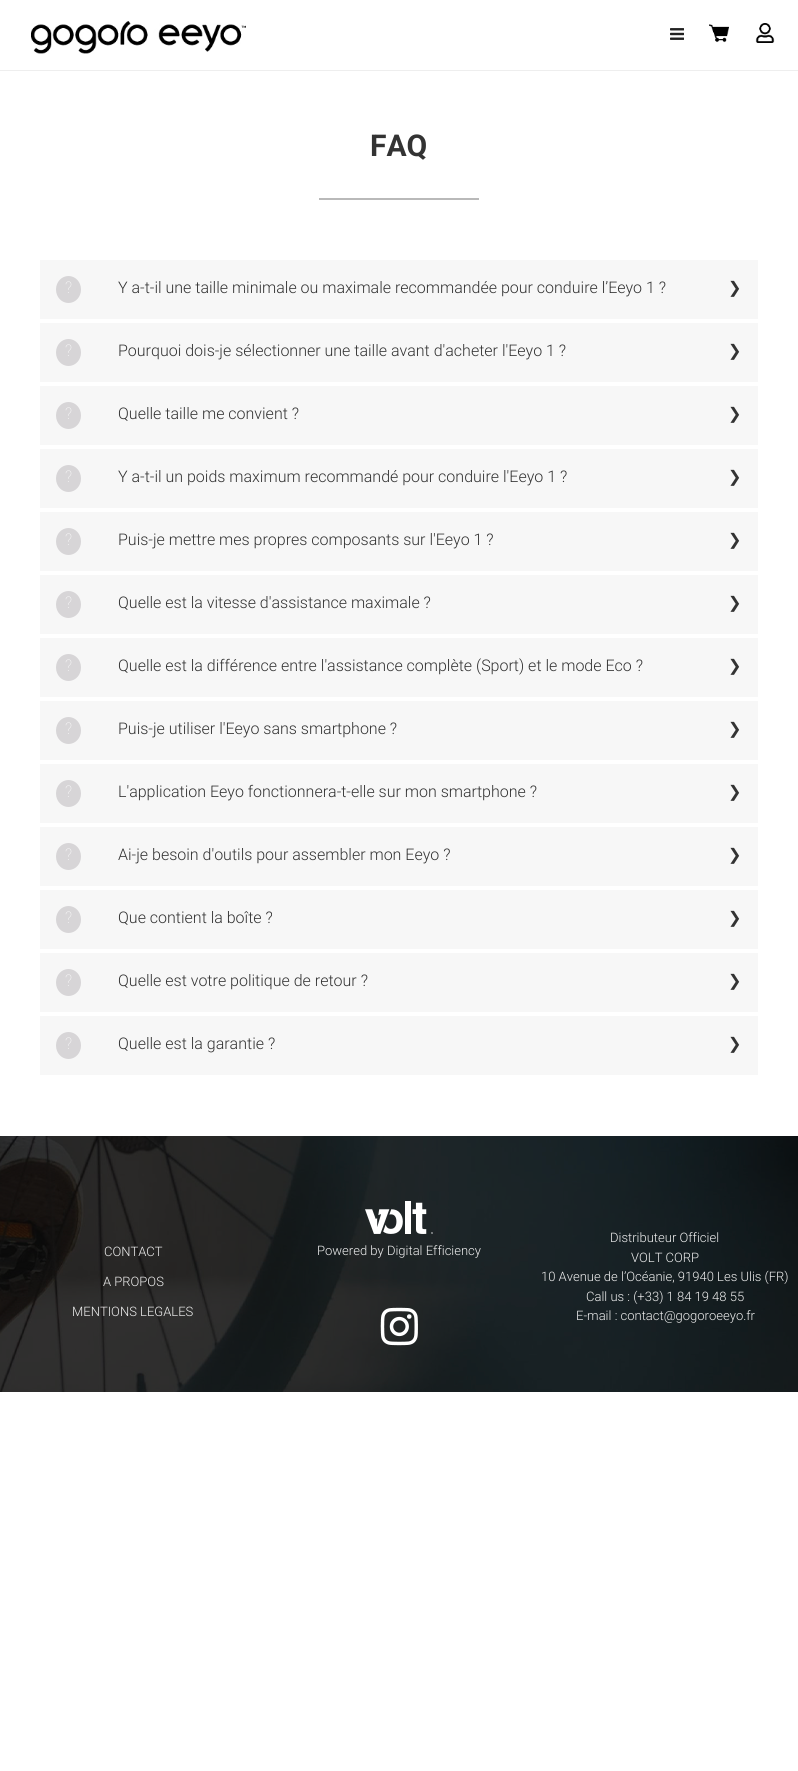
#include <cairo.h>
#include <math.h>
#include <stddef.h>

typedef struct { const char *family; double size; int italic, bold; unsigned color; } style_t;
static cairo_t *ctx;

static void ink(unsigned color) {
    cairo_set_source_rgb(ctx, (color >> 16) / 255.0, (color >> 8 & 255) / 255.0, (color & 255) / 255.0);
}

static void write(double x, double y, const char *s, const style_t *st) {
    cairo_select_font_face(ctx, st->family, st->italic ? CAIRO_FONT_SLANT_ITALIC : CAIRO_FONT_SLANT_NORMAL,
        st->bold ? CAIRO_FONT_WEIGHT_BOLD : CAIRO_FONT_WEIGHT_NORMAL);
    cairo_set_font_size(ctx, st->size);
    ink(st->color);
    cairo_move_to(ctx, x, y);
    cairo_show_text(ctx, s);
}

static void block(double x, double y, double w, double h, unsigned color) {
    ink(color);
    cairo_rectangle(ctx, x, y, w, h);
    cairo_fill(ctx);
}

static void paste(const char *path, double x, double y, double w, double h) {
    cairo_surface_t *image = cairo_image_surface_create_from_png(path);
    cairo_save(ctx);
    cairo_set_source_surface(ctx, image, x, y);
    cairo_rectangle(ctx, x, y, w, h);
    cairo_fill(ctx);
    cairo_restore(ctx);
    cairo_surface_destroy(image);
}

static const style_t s1 = {"Roboto", 30, 0, 1, 0x333333};
static const style_t s2 = {"Roboto Thin", 16, 0, 0, 0xffffff};
static const style_t s3 = {"Roboto Light", 16, 0, 0, 0x333333};
static const style_t s4 = {"DejaVu Sans", 16, 0, 0, 0x333333};
static const style_t s5 = {"Roboto Light", 13, 0, 0, 0xeeeeee};

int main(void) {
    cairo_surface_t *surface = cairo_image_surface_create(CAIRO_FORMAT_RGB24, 798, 1771);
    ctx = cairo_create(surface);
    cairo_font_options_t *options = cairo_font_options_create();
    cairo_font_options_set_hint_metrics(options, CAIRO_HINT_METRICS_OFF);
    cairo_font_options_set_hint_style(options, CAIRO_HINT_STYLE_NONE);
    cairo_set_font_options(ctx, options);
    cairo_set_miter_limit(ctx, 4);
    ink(0xffffff);
    cairo_paint(ctx);
    block(0, 70, 798, 1, 0xeeeeee);
    paste("pic1.png", 31, 21, 215, 33);
    paste("pic2.png", 670, 28, 14, 12);
    paste("pic3.png", 709, 24, 20, 19);
    paste("pic4.png", 755, 23, 20, 20);
    write(370, 156, "FAQ", &s1);
    block(319, 198, 160, 2, 0xb9b9b9);
    block(40, 260, 718, 59, 0xf7f7f7);
    ink(0xd7d5d7);
    cairo_new_path(ctx);
    cairo_move_to(ctx, 68.5, 276);
    cairo_curve_to(ctx, 75.5, 276, 81, 282, 81, 289.5);
    cairo_curve_to(ctx, 81, 297, 75.5, 303, 68.5, 303);
    cairo_curve_to(ctx, 61.5, 303, 56, 297, 56, 289.5);
    cairo_curve_to(ctx, 56, 282, 61.5, 276, 68.5, 276);
    cairo_close_path(ctx);
    cairo_fill(ctx);
    write(65, 293, "?", &s2);
    write(118, 293, "Y a-t-il une taille minimale ou maximale recommandée pour conduire l’Eeyo 1 ?", &s3);
    write(728, 293, "❯", &s4);
    block(40, 323, 718, 59, 0xf7f7f7);
    ink(0xd7d5d7);
    cairo_new_path(ctx);
    cairo_move_to(ctx, 68.5, 339);
    cairo_curve_to(ctx, 75.5, 339, 81, 345, 81, 352.5);
    cairo_curve_to(ctx, 81, 360, 75.5, 366, 68.5, 366);
    cairo_curve_to(ctx, 61.5, 366, 56, 360, 56, 352.5);
    cairo_curve_to(ctx, 56, 345, 61.5, 339, 68.5, 339);
    cairo_close_path(ctx);
    cairo_fill(ctx);
    write(65, 356, "?", &s2);
    write(118, 356, "Pourquoi dois-je sélectionner une taille avant d'acheter l'Eeyo 1 ?", &s3);
    write(728, 356, "❯", &s4);
    block(40, 386, 718, 59, 0xf7f7f7);
    ink(0xd7d5d7);
    cairo_new_path(ctx);
    cairo_move_to(ctx, 68.5, 402);
    cairo_curve_to(ctx, 75.5, 402, 81, 408, 81, 415.5);
    cairo_curve_to(ctx, 81, 423, 75.5, 429, 68.5, 429);
    cairo_curve_to(ctx, 61.5, 429, 56, 423, 56, 415.5);
    cairo_curve_to(ctx, 56, 408, 61.5, 402, 68.5, 402);
    cairo_close_path(ctx);
    cairo_fill(ctx);
    write(65, 419, "?", &s2);
    write(118, 419, "Quelle taille me convient ?", &s3);
    write(728, 419, "❯", &s4);
    block(40, 449, 718, 59, 0xf7f7f7);
    ink(0xd7d5d7);
    cairo_new_path(ctx);
    cairo_move_to(ctx, 68.5, 465);
    cairo_curve_to(ctx, 75.5, 465, 81, 471, 81, 478.5);
    cairo_curve_to(ctx, 81, 486, 75.5, 492, 68.5, 492);
    cairo_curve_to(ctx, 61.5, 492, 56, 486, 56, 478.5);
    cairo_curve_to(ctx, 56, 471, 61.5, 465, 68.5, 465);
    cairo_close_path(ctx);
    cairo_fill(ctx);
    write(65, 482, "?", &s2);
    write(118, 482, "Y a-t-il un poids maximum recommandé pour conduire l'Eeyo 1 ?", &s3);
    write(728, 482, "❯", &s4);
    block(40, 512, 718, 59, 0xf7f7f7);
    ink(0xd7d5d7);
    cairo_new_path(ctx);
    cairo_move_to(ctx, 68.5, 528);
    cairo_curve_to(ctx, 75.5, 528, 81, 534, 81, 541.5);
    cairo_curve_to(ctx, 81, 549, 75.5, 555, 68.5, 555);
    cairo_curve_to(ctx, 61.5, 555, 56, 549, 56, 541.5);
    cairo_curve_to(ctx, 56, 534, 61.5, 528, 68.5, 528);
    cairo_close_path(ctx);
    cairo_fill(ctx);
    write(65, 545, "?", &s2);
    write(118, 545, "Puis-je mettre mes propres composants sur l'Eeyo 1 ?", &s3);
    write(728, 545, "❯", &s4);
    block(40, 575, 718, 59, 0xf7f7f7);
    ink(0xd7d5d7);
    cairo_new_path(ctx);
    cairo_move_to(ctx, 68.5, 591);
    cairo_curve_to(ctx, 75.5, 591, 81, 597, 81, 604.5);
    cairo_curve_to(ctx, 81, 612, 75.5, 618, 68.5, 618);
    cairo_curve_to(ctx, 61.5, 618, 56, 612, 56, 604.5);
    cairo_curve_to(ctx, 56, 597, 61.5, 591, 68.5, 591);
    cairo_close_path(ctx);
    cairo_fill(ctx);
    write(65, 608, "?", &s2);
    write(118, 608, "Quelle est la vitesse d'assistance maximale ?", &s3);
    write(728, 608, "❯", &s4);
    block(40, 638, 718, 59, 0xf7f7f7);
    ink(0xd7d5d7);
    cairo_new_path(ctx);
    cairo_move_to(ctx, 68.5, 654);
    cairo_curve_to(ctx, 75.5, 654, 81, 660, 81, 667.5);
    cairo_curve_to(ctx, 81, 675, 75.5, 681, 68.5, 681);
    cairo_curve_to(ctx, 61.5, 681, 56, 675, 56, 667.5);
    cairo_curve_to(ctx, 56, 660, 61.5, 654, 68.5, 654);
    cairo_close_path(ctx);
    cairo_fill(ctx);
    write(65, 671, "?", &s2);
    write(118, 671, "Quelle est la différence entre l'assistance complète (Sport) et le mode Eco ?", &s3);
    write(728, 671, "❯", &s4);
    block(40, 701, 718, 59, 0xf7f7f7);
    ink(0xd7d5d7);
    cairo_new_path(ctx);
    cairo_move_to(ctx, 68.5, 717);
    cairo_curve_to(ctx, 75.5, 717, 81, 723, 81, 730.5);
    cairo_curve_to(ctx, 81, 738, 75.5, 744, 68.5, 744);
    cairo_curve_to(ctx, 61.5, 744, 56, 738, 56, 730.5);
    cairo_curve_to(ctx, 56, 723, 61.5, 717, 68.5, 717);
    cairo_close_path(ctx);
    cairo_fill(ctx);
    write(65, 734, "?", &s2);
    write(118, 734, "Puis-je utiliser l'Eeyo sans smartphone ?", &s3);
    write(728, 734, "❯", &s4);
    block(40, 764, 718, 59, 0xf7f7f7);
    ink(0xd7d5d7);
    cairo_new_path(ctx);
    cairo_move_to(ctx, 68.5, 780);
    cairo_curve_to(ctx, 75.5, 780, 81, 786, 81, 793.5);
    cairo_curve_to(ctx, 81, 801, 75.5, 807, 68.5, 807);
    cairo_curve_to(ctx, 61.5, 807, 56, 801, 56, 793.5);
    cairo_curve_to(ctx, 56, 786, 61.5, 780, 68.5, 780);
    cairo_close_path(ctx);
    cairo_fill(ctx);
    write(65, 797, "?", &s2);
    write(118, 797, "L'application Eeyo fonctionnera-t-elle sur mon smartphone ?", &s3);
    write(728, 797, "❯", &s4);
    block(40, 827, 718, 59, 0xf7f7f7);
    ink(0xd7d5d7);
    cairo_new_path(ctx);
    cairo_move_to(ctx, 68.5, 843);
    cairo_curve_to(ctx, 75.5, 843, 81, 849, 81, 856.5);
    cairo_curve_to(ctx, 81, 864, 75.5, 870, 68.5, 870);
    cairo_curve_to(ctx, 61.5, 870, 56, 864, 56, 856.5);
    cairo_curve_to(ctx, 56, 849, 61.5, 843, 68.5, 843);
    cairo_close_path(ctx);
    cairo_fill(ctx);
    write(65, 860, "?", &s2);
    write(118, 860, "Ai-je besoin d'outils pour assembler mon Eeyo ?", &s3);
    write(728, 860, "❯", &s4);
    block(40, 890, 718, 59, 0xf7f7f7);
    ink(0xd7d5d7);
    cairo_new_path(ctx);
    cairo_move_to(ctx, 68.5, 906);
    cairo_curve_to(ctx, 75.5, 906, 81, 912, 81, 919.5);
    cairo_curve_to(ctx, 81, 927, 75.5, 933, 68.5, 933);
    cairo_curve_to(ctx, 61.5, 933, 56, 927, 56, 919.5);
    cairo_curve_to(ctx, 56, 912, 61.5, 906, 68.5, 906);
    cairo_close_path(ctx);
    cairo_fill(ctx);
    write(65, 923, "?", &s2);
    write(118, 923, "Que contient la boîte ?", &s3);
    write(728, 923, "❯", &s4);
    block(40, 953, 718, 59, 0xf7f7f7);
    ink(0xd7d5d7);
    cairo_new_path(ctx);
    cairo_move_to(ctx, 68.5, 969);
    cairo_curve_to(ctx, 75.5, 969, 81, 975, 81, 982.5);
    cairo_curve_to(ctx, 81, 990, 75.5, 996, 68.5, 996);
    cairo_curve_to(ctx, 61.5, 996, 56, 990, 56, 982.5);
    cairo_curve_to(ctx, 56, 975, 61.5, 969, 68.5, 969);
    cairo_close_path(ctx);
    cairo_fill(ctx);
    write(65, 986, "?", &s2);
    write(118, 986, "Quelle est votre politique de retour ?", &s3);
    write(728, 986, "❯", &s4);
    block(40, 1016, 718, 59, 0xf7f7f7);
    ink(0xd7d5d7);
    cairo_new_path(ctx);
    cairo_move_to(ctx, 68.5, 1032);
    cairo_curve_to(ctx, 75.5, 1032, 81, 1038, 81, 1045.5);
    cairo_curve_to(ctx, 81, 1053, 75.5, 1059, 68.5, 1059);
    cairo_curve_to(ctx, 61.5, 1059, 56, 1053, 56, 1045.5);
    cairo_curve_to(ctx, 56, 1038, 61.5, 1032, 68.5, 1032);
    cairo_close_path(ctx);
    cairo_fill(ctx);
    write(65, 1049, "?", &s2);
    write(118, 1049, "Quelle est la garantie ?", &s3);
    write(728, 1049, "❯", &s4);
    paste("pic5.png", 0, 1136, 798, 256);
    write(104, 1256, "CONTACT", &s5);
    write(103, 1286, "A PROPOS", &s5);
    write(72, 1316, "MENTIONS LEGALES", &s5);
    paste("pic6.png", 365, 1201, 68, 33);
    write(317, 1255, "Powered by Digital Efficiency", &s5);
    paste("pic7.png", 380, 1307, 38, 39);
    write(610, 1242, "Distributeur Officiel", &s5);
    write(631, 1262, "VOLT CORP", &s5);
    write(541, 1281, "10 Avenue de l’Océanie, 91940 Les Ulis (FR)", &s5);
    write(586, 1301, "Call us : (+33) 1 84 19 48 55", &s5);
    write(576, 1320, "E-mail : contact@gogoroeeyo.fr", &s5);
    cairo_surface_write_to_png(surface, "screenshot.png");
    cairo_font_options_destroy(options);
    cairo_destroy(ctx);
    cairo_surface_destroy(surface);
    return 0;
}
